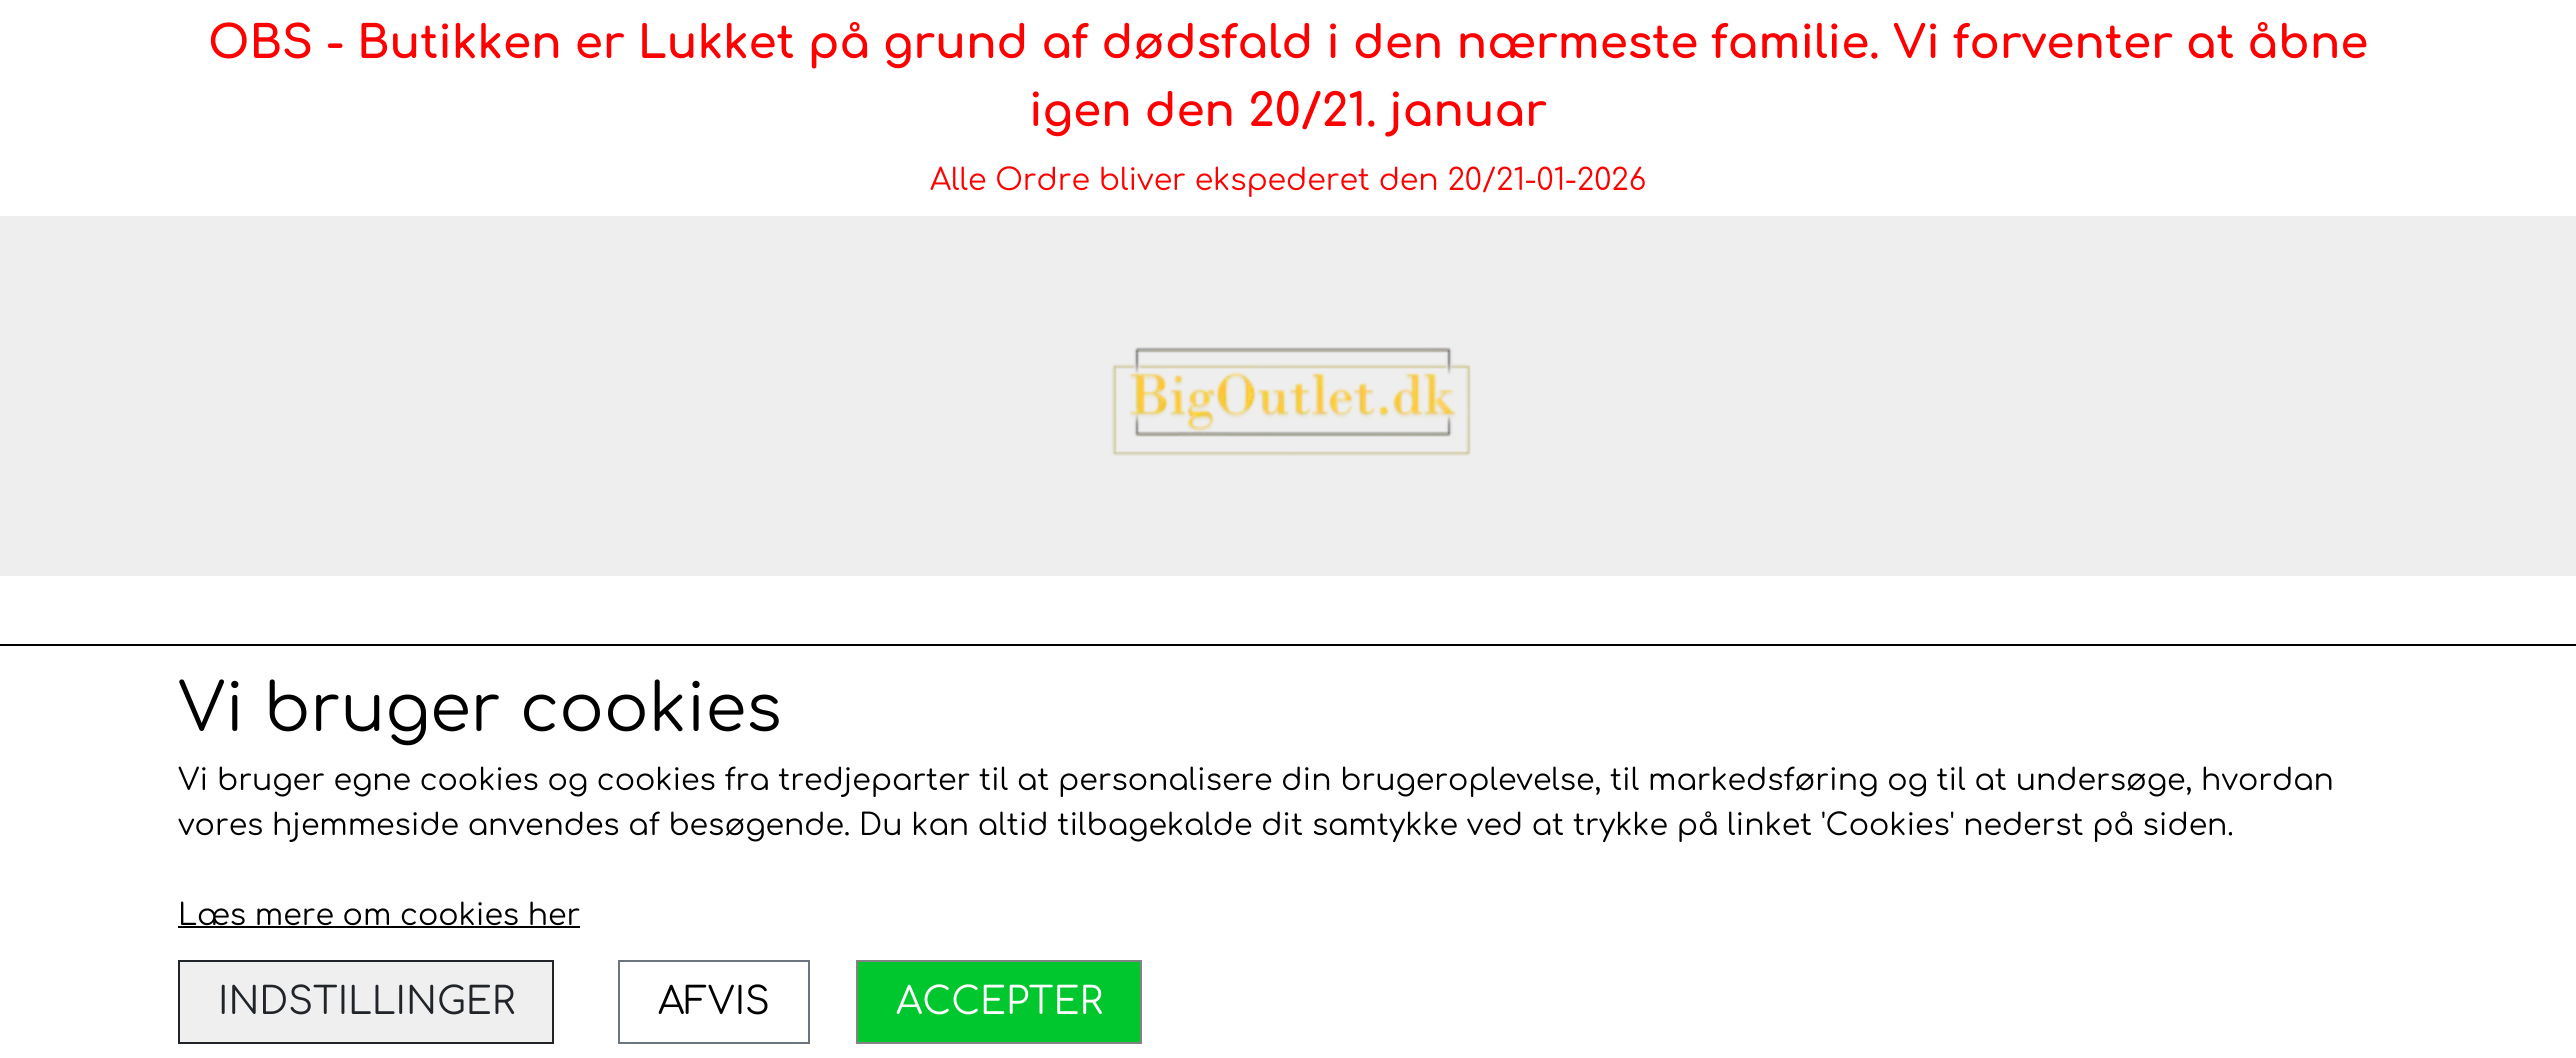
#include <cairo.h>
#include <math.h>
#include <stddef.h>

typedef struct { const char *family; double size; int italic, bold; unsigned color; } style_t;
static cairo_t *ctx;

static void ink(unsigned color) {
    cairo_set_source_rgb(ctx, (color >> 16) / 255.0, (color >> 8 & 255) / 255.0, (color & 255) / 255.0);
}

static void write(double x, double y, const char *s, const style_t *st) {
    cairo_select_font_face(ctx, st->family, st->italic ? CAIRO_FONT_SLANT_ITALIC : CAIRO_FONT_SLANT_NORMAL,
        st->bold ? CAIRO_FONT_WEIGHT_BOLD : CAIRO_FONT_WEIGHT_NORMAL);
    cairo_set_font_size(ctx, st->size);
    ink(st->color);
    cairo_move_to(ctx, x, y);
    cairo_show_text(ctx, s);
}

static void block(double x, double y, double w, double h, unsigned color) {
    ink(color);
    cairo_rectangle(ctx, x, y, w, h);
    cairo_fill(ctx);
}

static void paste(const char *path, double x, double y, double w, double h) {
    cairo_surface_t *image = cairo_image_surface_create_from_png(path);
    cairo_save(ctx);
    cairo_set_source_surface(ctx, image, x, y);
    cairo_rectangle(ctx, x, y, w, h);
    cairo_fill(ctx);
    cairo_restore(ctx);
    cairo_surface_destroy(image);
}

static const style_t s1 = {"Comfortaa", 45, 0, 1, 0xff0000};
static const style_t s2 = {"Comfortaa", 30, 0, 0, 0xff0000};
static const style_t s3 = {"Comfortaa", 66, 0, 0, 0x000000};
static const style_t s4 = {"Comfortaa", 30, 0, 0, 0x000000};
static const style_t s5 = {"Comfortaa", 37.5, 0, 0, 0x212529};
static const style_t s6 = {"Comfortaa", 37.5, 0, 0, 0x000000};
static const style_t s7 = {"Comfortaa", 37.5, 0, 0, 0xffffff};

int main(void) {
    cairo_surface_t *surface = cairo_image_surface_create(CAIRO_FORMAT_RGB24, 2576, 1058);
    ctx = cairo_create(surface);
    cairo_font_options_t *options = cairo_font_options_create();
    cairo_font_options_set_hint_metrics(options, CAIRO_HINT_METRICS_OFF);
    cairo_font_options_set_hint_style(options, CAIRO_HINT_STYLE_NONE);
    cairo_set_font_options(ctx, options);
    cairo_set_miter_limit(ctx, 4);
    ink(0xffffff);
    cairo_paint(ctx);
    write(208, 58, "OBS - Butikken er Lukket på grund af dødsfald i den nærmeste familie. Vi forventer at åbne", &s1);
    write(1029, 126, "igen den 20/21. januar", &s1);
    write(930, 190, "Alle Ordre bliver ekspederet den 20/21-01-2026", &s2);
    block(0, 216, 2576, 360, 0xeeeeee);
    paste("pic1.png", 1111, 347, 360, 109);
    block(0, 644, 2576, 2, 0x000000);
    write(178, 731, "Vi bruger cookies", &s3);
    write(178, 790, "Vi bruger egne cookies og cookies fra tredjeparter til at personalisere din brugeroplevelse, til markedsføring og til at undersøge, hvordan", &s4);
    write(178, 835, "vores hjemmeside anvendes af besøgende. Du kan altid tilbagekalde dit samtykke ved at trykke på linket 'Cookies' nederst på siden.", &s4);
    write(178, 925, "Læs mere om cookies her", &s4);
    block(178, 926, 402, 2, 0x000000);
    ink(0xefefef);
    cairo_rectangle(ctx, 179, 961, 374, 82);
    cairo_fill_preserve(ctx);
    ink(0x212529);
    cairo_stroke(ctx);
    write(218, 1014, "INDSTILLINGER", &s5);
    cairo_rectangle(ctx, 619, 961, 190, 82);
    ink(0x6c757d);
    cairo_stroke(ctx);
    write(658, 1014, "AFVIS", &s6);
    ink(0x00c72d);
    cairo_rectangle(ctx, 857, 961, 284, 82);
    cairo_fill_preserve(ctx);
    ink(0x838383);
    cairo_stroke(ctx);
    write(896, 1014, "ACCEPTER", &s7);
    cairo_surface_write_to_png(surface, "screenshot.png");
    cairo_font_options_destroy(options);
    cairo_destroy(ctx);
    cairo_surface_destroy(surface);
    return 0;
}
